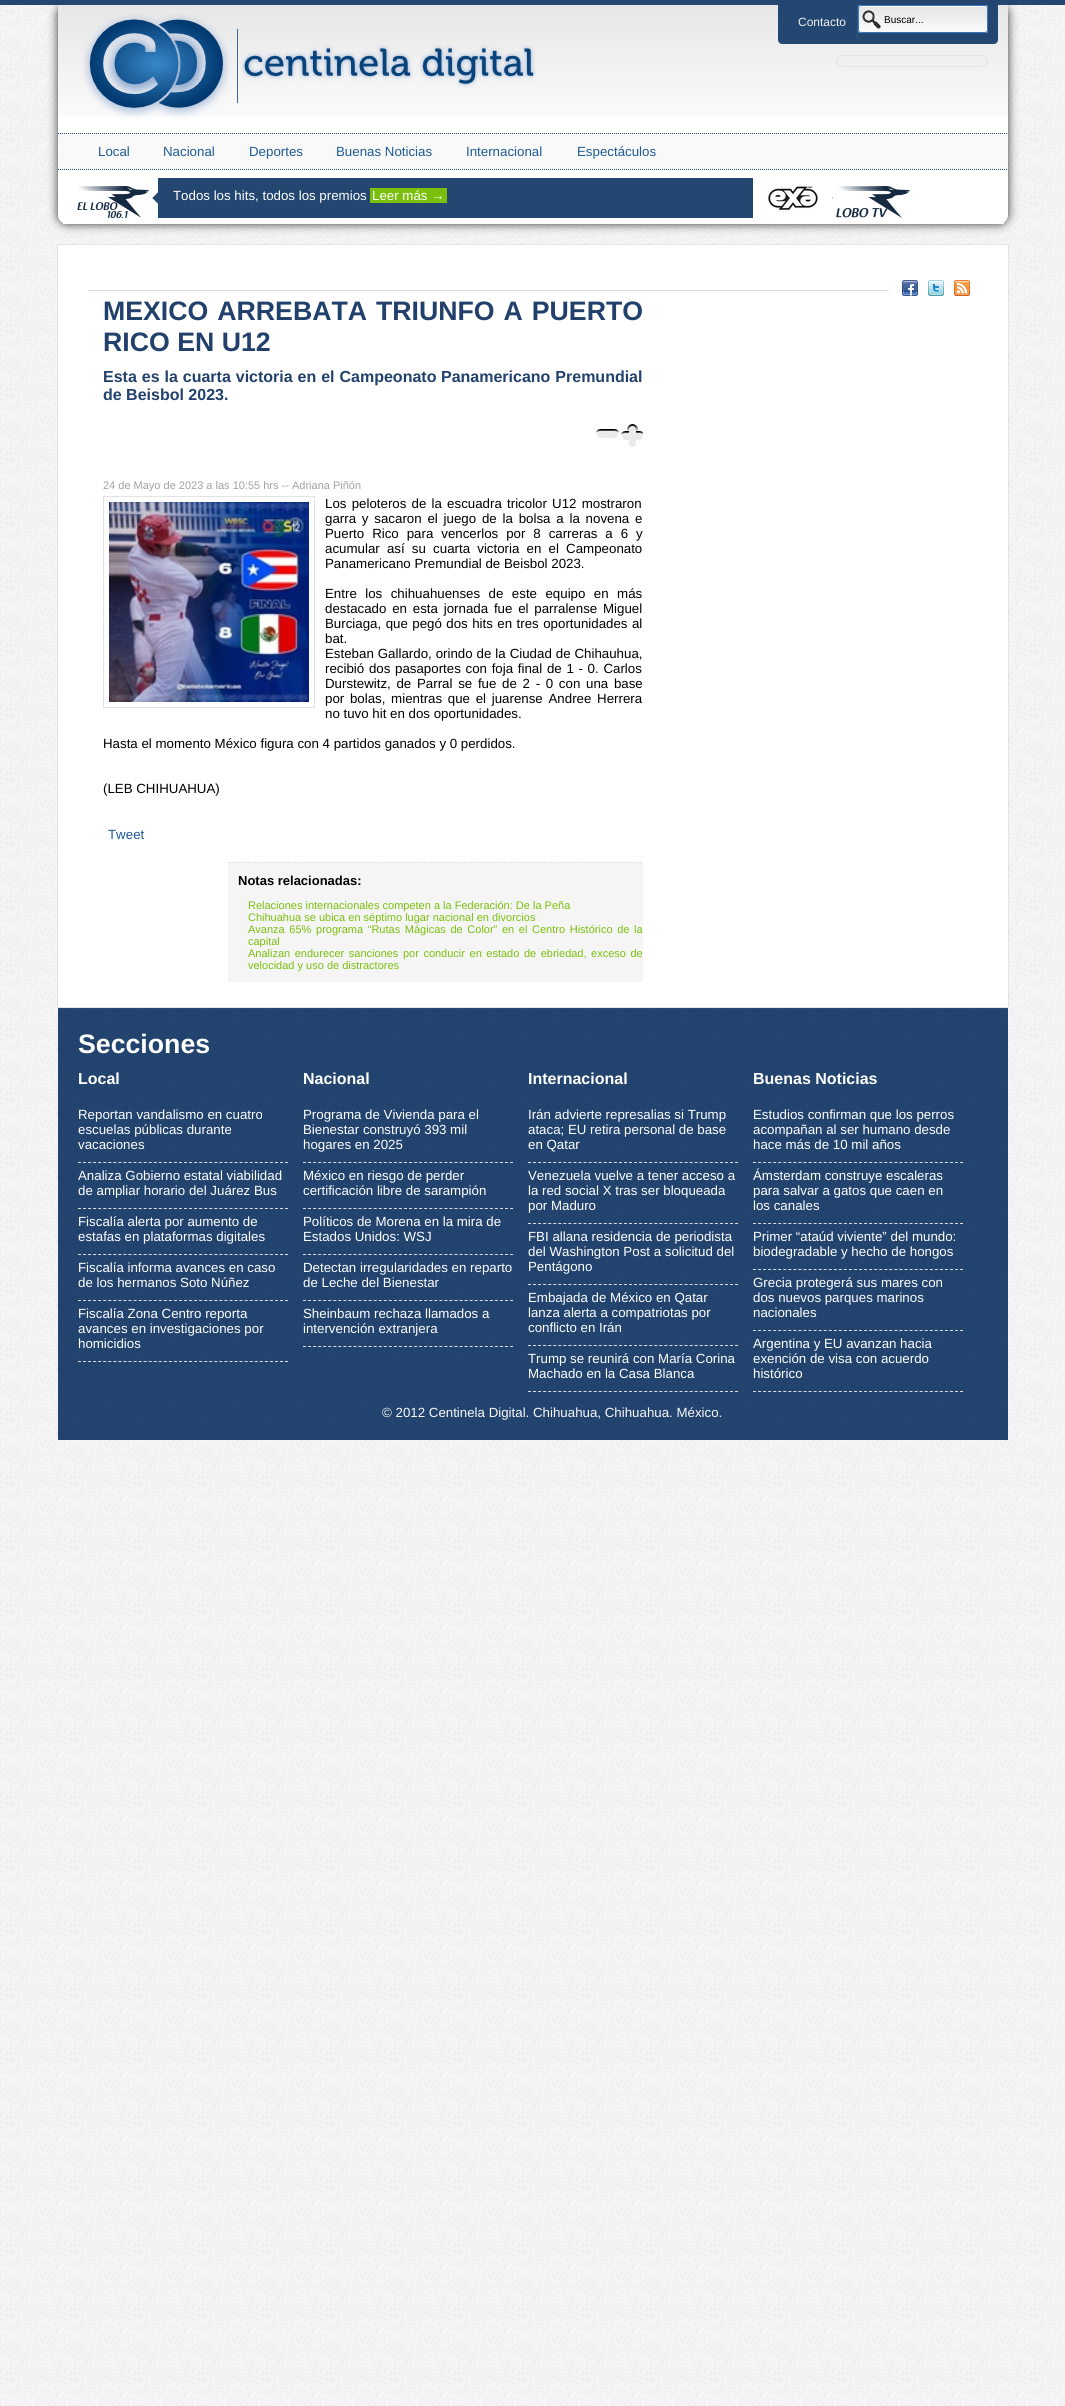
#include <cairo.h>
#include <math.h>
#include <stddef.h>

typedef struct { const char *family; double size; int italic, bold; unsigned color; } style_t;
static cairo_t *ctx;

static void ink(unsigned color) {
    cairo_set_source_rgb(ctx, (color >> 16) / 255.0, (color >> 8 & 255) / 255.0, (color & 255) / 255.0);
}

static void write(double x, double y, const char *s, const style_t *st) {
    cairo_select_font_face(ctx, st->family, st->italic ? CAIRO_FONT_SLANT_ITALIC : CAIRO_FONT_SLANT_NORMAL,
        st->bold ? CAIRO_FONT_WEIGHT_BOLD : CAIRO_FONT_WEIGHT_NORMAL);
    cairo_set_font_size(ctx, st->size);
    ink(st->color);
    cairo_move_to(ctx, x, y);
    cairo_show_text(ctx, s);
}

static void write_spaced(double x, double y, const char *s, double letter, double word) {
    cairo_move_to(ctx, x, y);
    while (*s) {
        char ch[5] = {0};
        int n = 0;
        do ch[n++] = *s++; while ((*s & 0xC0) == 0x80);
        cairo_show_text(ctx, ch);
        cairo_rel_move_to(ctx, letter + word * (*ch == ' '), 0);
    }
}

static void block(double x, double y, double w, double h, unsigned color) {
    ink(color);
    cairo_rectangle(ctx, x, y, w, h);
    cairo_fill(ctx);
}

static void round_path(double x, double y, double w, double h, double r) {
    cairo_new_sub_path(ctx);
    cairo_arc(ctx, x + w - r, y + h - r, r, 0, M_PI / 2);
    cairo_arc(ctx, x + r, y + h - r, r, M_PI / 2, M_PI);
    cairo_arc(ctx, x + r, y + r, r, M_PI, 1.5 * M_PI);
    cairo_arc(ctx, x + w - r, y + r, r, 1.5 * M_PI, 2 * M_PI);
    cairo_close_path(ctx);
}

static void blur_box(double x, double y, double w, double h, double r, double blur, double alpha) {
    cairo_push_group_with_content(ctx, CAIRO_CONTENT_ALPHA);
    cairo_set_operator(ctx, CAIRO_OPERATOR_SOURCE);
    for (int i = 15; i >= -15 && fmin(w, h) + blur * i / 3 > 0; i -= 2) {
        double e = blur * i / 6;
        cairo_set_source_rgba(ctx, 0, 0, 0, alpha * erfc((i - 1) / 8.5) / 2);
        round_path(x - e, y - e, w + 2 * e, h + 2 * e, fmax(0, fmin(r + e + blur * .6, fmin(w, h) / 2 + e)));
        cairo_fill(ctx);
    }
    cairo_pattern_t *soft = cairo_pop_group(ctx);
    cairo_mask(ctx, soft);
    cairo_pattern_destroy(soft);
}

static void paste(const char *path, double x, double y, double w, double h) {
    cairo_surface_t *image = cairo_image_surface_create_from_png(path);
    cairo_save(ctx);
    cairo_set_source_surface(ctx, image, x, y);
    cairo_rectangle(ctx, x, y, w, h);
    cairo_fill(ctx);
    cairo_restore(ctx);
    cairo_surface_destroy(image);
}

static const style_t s1 = {"Liberation Sans", 12, 0, 0, 0xf0f0f0};
static const style_t s2 = {"Liberation Sans", 10, 0, 0, 0x000000};
static const style_t s3 = {"Liberation Sans", 13.3, 0, 0, 0x1d5a93};
static const style_t s4 = {"Liberation Sans", 13.3, 0, 0, 0xffffff};
static const style_t s5 = {"Liberation Sans", 26.7, 0, 1, 0x21416c};
static const style_t s6 = {"Liberation Sans", 16, 0, 1, 0x21416c};
static const style_t s7 = {"Liberation Sans", 11, 0, 0, 0xa1a1a1};
static const style_t s8 = {"Liberation Sans", 13.3, 0, 0, 0x000000};
static const style_t s9 = {"Liberation Sans", 13, 0, 1, 0x000000};
static const style_t s10 = {"Liberation Sans", 11, 0, 0, 0x7abf0b};
static const style_t s11 = {"Liberation Sans", 26.7, 0, 1, 0xffffff};
static const style_t s12 = {"Liberation Sans", 16, 0, 1, 0xffffff};
static const style_t s13 = {"Liberation Sans", 13.3, 0, 0, 0xf9f9f9};

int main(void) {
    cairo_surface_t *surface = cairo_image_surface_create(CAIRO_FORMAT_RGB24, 1065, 2406);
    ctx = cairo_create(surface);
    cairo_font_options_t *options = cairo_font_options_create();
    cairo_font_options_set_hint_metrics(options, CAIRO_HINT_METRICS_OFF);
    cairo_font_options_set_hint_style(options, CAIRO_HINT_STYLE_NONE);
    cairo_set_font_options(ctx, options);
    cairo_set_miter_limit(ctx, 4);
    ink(0xf9f9f9);
    cairo_paint(ctx);
    paste("pic1.png", 0, 5, 1065, 2401);
    block(0, 0, 1065, 5, 0x244771);
    cairo_save(ctx);
    cairo_rectangle(ctx, 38, 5, 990, 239);
    cairo_clip(ctx);
    ink(0x333333);
    blur_box(58, 5, 950, 219, 9, 5, 1);
    cairo_restore(ctx);
    ink(0xffffff);
    cairo_new_path(ctx);
    cairo_move_to(ctx, 58, 5);
    cairo_line_to(ctx, 1008, 5);
    cairo_line_to(ctx, 1008, 215);
    cairo_curve_to(ctx, 1008, 220, 1004, 224, 999, 224);
    cairo_line_to(ctx, 67, 224);
    cairo_curve_to(ctx, 62, 224, 58, 220, 58, 215);
    cairo_close_path(ctx);
    cairo_fill(ctx);
    paste("pic2.png", 58, 5, 950, 111);
    block(63, 223, 941, 1, 0xffffff);
    paste("pic3.png", 82, 13, 455, 106);
    ink(0x244771);
    cairo_new_path(ctx);
    cairo_move_to(ctx, 778, 5);
    cairo_line_to(ctx, 998, 5);
    cairo_line_to(ctx, 998, 40);
    cairo_curve_to(ctx, 998, 42, 996, 44, 994, 44);
    cairo_line_to(ctx, 782, 44);
    cairo_curve_to(ctx, 780, 44, 778, 42, 778, 40);
    cairo_close_path(ctx);
    cairo_fill(ctx);
    block(857, 5, 1, 34, 0x2c598f);
    write(798, 26, "Contacto", &s1);
    paste("pic4.png", 858, 5, 130, 28);
    round_path(858.5, 5.5, 129, 27, 2.5);
    ink(0x3b77bf);
    cairo_set_line_width(ctx, 1);
    cairo_stroke(ctx);
    write(884, 23, "Buscar...", &s2);
    round_path(836.5, 55.5, 151, 11, 5.5);
    ink(0xe3e3e3);
    cairo_stroke(ctx);
    block(58, 133, 950, 37, 0xf9f9f9);
    cairo_new_path(ctx);
    cairo_move_to(ctx, 58, 133.5);
    cairo_line_to(ctx, 1008, 133.5);
    ink(0x244771);
    cairo_set_dash(ctx, (double[]){1, 1}, 2, 0);
    cairo_stroke(ctx);
    cairo_new_path(ctx);
    cairo_move_to(ctx, 58, 169.5);
    cairo_line_to(ctx, 1008, 169.5);
    cairo_stroke(ctx);
    write(98, 156, "Local", &s3);
    write(163, 156, "Nacional", &s3);
    write(249, 156, "Deportes", &s3);
    write(336, 156, "Buenas Noticias", &s3);
    write(466, 156, "Internacional", &s3);
    write(577, 156, "Espectáculos", &s3);
    paste("pic5.png", 152, 178, 601, 40);
    paste("pic6.png", 77, 186, 72, 32);
    write(173, 200, "Todos los hits, todos los premios", &s4);
    block(370, 188, 77, 15, 0x7abf0b);
    write(372, 200, "Leer más →", &s4);
    paste("pic7.png", 832, 178, 1, 40);
    paste("pic8.png", 768, 186, 50, 24);
    paste("pic9.png", 836, 186, 74, 32);
    cairo_rectangle(ctx, 57.5, 244.5, 951, 763);
    cairo_fill_preserve(ctx);
    ink(0xe3e3e3);
    cairo_set_dash(ctx, NULL, 0, 0);
    cairo_stroke(ctx);
    block(88, 290, 801, 1, 0xdddddd);
    paste("pic10.png", 902, 280, 16, 16);
    paste("pic11.png", 928, 280, 16, 16);
    paste("pic12.png", 954, 280, 16, 16);
    cairo_select_font_face(ctx, "Liberation Sans", CAIRO_FONT_SLANT_NORMAL, CAIRO_FONT_WEIGHT_BOLD);
    cairo_set_font_size(ctx, 26.7);
    ink(0x21416c);
    write_spaced(103, 320, "MEXICO ARREBATA TRIUNFO A PUERTO", 0, 1.5);
    write(103, 351, "RICO EN U12", &s5);
    cairo_set_font_size(ctx, 16);
    write_spaced(103, 382, "Esta es la cuarta victoria en el Campeonato", 0, 0.5);
    write_spaced(441, 382, "Panamericano Premundial", 0, 0.5);
    write(103, 400, "de Beisbol 2023.", &s6);
    paste("pic13.png", 595, 429, 25, 9);
    paste("pic14.png", 620, 424, 23, 23);
    write(103, 489, "24 de Mayo de 2023 a las 10:55 hrs -- Adriana Piñón", &s7);
    cairo_rectangle(ctx, 103.5, 496.5, 211, 211);
    ink(0xe3e3e3);
    cairo_stroke(ctx);
    paste("pic15.png", 109, 502, 200, 200);
    cairo_set_font_size(ctx, 13.3);
    ink(0x000000);
    write_spaced(325, 508, "Los peloteros de la escuadra tricolor U12 mostraron", 0, 1.5);
    write_spaced(325, 523, "garra y sacaron el juego de la bolsa a la novena e", 0, 2.1);
    write_spaced(325, 538, "Puerto Rico para vencerlos por 8 carreras a 6 y", 0, 4.25);
    write_spaced(325, 553, "acumular así su cuarta victoria en el Campeonato", 0, 3.5);
    write(325, 568, "Panamericano Premundial de Beisbol 2023.", &s8);
    write_spaced(325, 598, "Entre los chihuahuenses de este equipo en más", 0, 4.75);
    write_spaced(325, 613, "destacado en esta jornada fue el parralense Miguel", 0, 2.1);
    write_spaced(325, 628, "Burciaga, que pegó dos hits en tres oportunidades al", 0, 0.75);
    write(325, 643, "bat.", &s8);
    write_spaced(325, 658, "Esteban Gallardo, orindo de la Ciudad de Chihauhua,", 0, 0.25);
    write_spaced(325, 673, "recibió dos pasaportes con foja final de 1 - 0. Carlos", 0, 1);
    write_spaced(325, 688, "Durstewitz, de Parral se fue de 2 - 0 con una base", 0, 2);
    write_spaced(325, 703, "por bolas, mientras que el juarense Andree Herrera", 0, 2);
    write(325, 718, "no tuvo hit en dos oportunidades.", &s8);
    write(103, 748, "Hasta el momento México figura con 4 partidos ganados y 0 perdidos.", &s8);
    write(103, 793, "(LEB CHIHUAHUA)", &s8);
    write(108, 839, "Tweet", &s3);
    block(228, 862, 415, 120, 0xf5f5f5);
    cairo_new_path(ctx);
    cairo_move_to(ctx, 228, 862.5);
    cairo_line_to(ctx, 643, 862.5);
    ink(0xe3e3e3);
    cairo_set_dash(ctx, (double[]){3, 2.02}, 2, 0);
    cairo_stroke(ctx);
    write(238, 885, "Notas relacionadas:", &s9);
    write(248, 909, "Relaciones internacionales competen a la Federación: De la Peña", &s10);
    write(248, 921, "Chihuahua se ubica en séptimo lugar nacional en divorcios", &s10);
    write_spaced(248, 933, "Avanza 65% programa “Rutas Mágicas de Color” en el Centro Histórico de la", 0, 1.6);
    write(248, 945, "capital", &s10);
    write_spaced(248, 957, "Analizan endurecer sanciones por conducir en estado de ebriedad, exceso de", 0, 1.5);
    write(248, 969, "velocidad y uso de distractores", &s10);
    block(58, 1009, 950, 431, 0x244771);
    paste("pic16.png", 58, 1009, 950, 431);
    block(58, 1008, 950, 1, 0x29496f);
    write(78, 1053, "Secciones", &s11);
    write(78, 1084, "Local", &s12);
    cairo_new_path(ctx);
    cairo_move_to(ctx, 78, 1162.5);
    cairo_line_to(ctx, 288, 1162.5);
    ink(0xdddddd);
    cairo_set_dash(ctx, (double[]){3, 2.05}, 2, 0);
    cairo_stroke(ctx);
    write(78, 1119, "Reportan vandalismo en cuatro", &s4);
    write(78, 1134, "escuelas públicas durante", &s4);
    write(78, 1149, "vacaciones", &s4);
    cairo_new_path(ctx);
    cairo_move_to(ctx, 78, 1208.5);
    cairo_line_to(ctx, 288, 1208.5);
    ink(0xdddddd);
    cairo_stroke(ctx);
    write(78, 1180, "Analiza Gobierno estatal viabilidad", &s4);
    write(78, 1195, "de ampliar horario del Juárez Bus", &s4);
    cairo_new_path(ctx);
    cairo_move_to(ctx, 78, 1254.5);
    cairo_line_to(ctx, 288, 1254.5);
    ink(0xdddddd);
    cairo_stroke(ctx);
    write(78, 1226, "Fiscalía alerta por aumento de", &s4);
    write(78, 1241, "estafas en plataformas digitales", &s4);
    cairo_new_path(ctx);
    cairo_move_to(ctx, 78, 1300.5);
    cairo_line_to(ctx, 288, 1300.5);
    ink(0xdddddd);
    cairo_stroke(ctx);
    write(78, 1272, "Fiscalía informa avances en caso", &s4);
    write(78, 1287, "de los hermanos Soto Núñez", &s4);
    cairo_new_path(ctx);
    cairo_move_to(ctx, 78, 1361.5);
    cairo_line_to(ctx, 288, 1361.5);
    ink(0xdddddd);
    cairo_stroke(ctx);
    write(78, 1318, "Fiscalía Zona Centro reporta", &s4);
    write(78, 1333, "avances en investigaciones por", &s4);
    write(78, 1348, "homicidios", &s4);
    write(303, 1084, "Nacional", &s12);
    cairo_new_path(ctx);
    cairo_move_to(ctx, 303, 1162.5);
    cairo_line_to(ctx, 513, 1162.5);
    ink(0xdddddd);
    cairo_stroke(ctx);
    write(303, 1119, "Programa de Vivienda para el", &s4);
    write(303, 1134, "Bienestar construyó 393 mil", &s4);
    write(303, 1149, "hogares en 2025", &s4);
    cairo_new_path(ctx);
    cairo_move_to(ctx, 303, 1208.5);
    cairo_line_to(ctx, 513, 1208.5);
    ink(0xdddddd);
    cairo_stroke(ctx);
    write(303, 1180, "México en riesgo de perder", &s4);
    write(303, 1195, "certificación libre de sarampión", &s4);
    cairo_new_path(ctx);
    cairo_move_to(ctx, 303, 1254.5);
    cairo_line_to(ctx, 513, 1254.5);
    ink(0xdddddd);
    cairo_stroke(ctx);
    write(303, 1226, "Políticos de Morena en la mira de", &s4);
    write(303, 1241, "Estados Unidos: WSJ", &s4);
    cairo_new_path(ctx);
    cairo_move_to(ctx, 303, 1300.5);
    cairo_line_to(ctx, 513, 1300.5);
    ink(0xdddddd);
    cairo_stroke(ctx);
    write(303, 1272, "Detectan irregularidades en reparto", &s4);
    write(303, 1287, "de Leche del Bienestar", &s4);
    cairo_new_path(ctx);
    cairo_move_to(ctx, 303, 1346.5);
    cairo_line_to(ctx, 513, 1346.5);
    ink(0xdddddd);
    cairo_stroke(ctx);
    write(303, 1318, "Sheinbaum rechaza llamados a", &s4);
    write(303, 1333, "intervención extranjera", &s4);
    write(528, 1084, "Internacional", &s12);
    cairo_new_path(ctx);
    cairo_move_to(ctx, 528, 1162.5);
    cairo_line_to(ctx, 738, 1162.5);
    ink(0xdddddd);
    cairo_stroke(ctx);
    write(528, 1119, "Irán advierte represalias si Trump", &s4);
    write(528, 1134, "ataca; EU retira personal de base", &s4);
    write(528, 1149, "en Qatar", &s4);
    cairo_new_path(ctx);
    cairo_move_to(ctx, 528, 1223.5);
    cairo_line_to(ctx, 738, 1223.5);
    ink(0xdddddd);
    cairo_stroke(ctx);
    write(528, 1180, "Venezuela vuelve a tener acceso a", &s4);
    write(528, 1195, "la red social X tras ser bloqueada", &s4);
    write(528, 1210, "por Maduro", &s4);
    cairo_new_path(ctx);
    cairo_move_to(ctx, 528, 1284.5);
    cairo_line_to(ctx, 738, 1284.5);
    ink(0xdddddd);
    cairo_stroke(ctx);
    write(528, 1241, "FBI allana residencia de periodista", &s4);
    write(528, 1256, "del Washington Post a solicitud del", &s4);
    write(528, 1271, "Pentágono", &s4);
    cairo_new_path(ctx);
    cairo_move_to(ctx, 528, 1345.5);
    cairo_line_to(ctx, 738, 1345.5);
    ink(0xdddddd);
    cairo_stroke(ctx);
    write(528, 1302, "Embajada de México en Qatar", &s4);
    write(528, 1317, "lanza alerta a compatriotas por", &s4);
    write(528, 1332, "conflicto en Irán", &s4);
    cairo_new_path(ctx);
    cairo_move_to(ctx, 528, 1391.5);
    cairo_line_to(ctx, 738, 1391.5);
    ink(0xdddddd);
    cairo_stroke(ctx);
    write(528, 1363, "Trump se reunirá con María Corina", &s4);
    write(528, 1378, "Machado en la Casa Blanca", &s4);
    write(753, 1084, "Buenas Noticias", &s12);
    cairo_new_path(ctx);
    cairo_move_to(ctx, 753, 1162.5);
    cairo_line_to(ctx, 963, 1162.5);
    ink(0xdddddd);
    cairo_stroke(ctx);
    write(753, 1119, "Estudios confirman que los perros", &s4);
    write(753, 1134, "acompañan al ser humano desde", &s4);
    write(753, 1149, "hace más de 10 mil años", &s4);
    cairo_new_path(ctx);
    cairo_move_to(ctx, 753, 1223.5);
    cairo_line_to(ctx, 963, 1223.5);
    ink(0xdddddd);
    cairo_stroke(ctx);
    write(753, 1180, "Ámsterdam construye escaleras", &s4);
    write(753, 1195, "para salvar a gatos que caen en", &s4);
    write(753, 1210, "los canales", &s4);
    cairo_new_path(ctx);
    cairo_move_to(ctx, 753, 1269.5);
    cairo_line_to(ctx, 963, 1269.5);
    ink(0xdddddd);
    cairo_stroke(ctx);
    write(753, 1241, "Primer “ataúd viviente” del mundo:", &s4);
    write(753, 1256, "biodegradable y hecho de hongos", &s4);
    cairo_new_path(ctx);
    cairo_move_to(ctx, 753, 1330.5);
    cairo_line_to(ctx, 963, 1330.5);
    ink(0xdddddd);
    cairo_stroke(ctx);
    write(753, 1287, "Grecia protegerá sus mares con", &s4);
    write(753, 1302, "dos nuevos parques marinos", &s4);
    write(753, 1317, "nacionales", &s4);
    cairo_new_path(ctx);
    cairo_move_to(ctx, 753, 1391.5);
    cairo_line_to(ctx, 963, 1391.5);
    ink(0xdddddd);
    cairo_stroke(ctx);
    write(753, 1348, "Argentina y EU avanzan hacia", &s4);
    write(753, 1363, "exención de visa con acuerdo", &s4);
    write(753, 1378, "histórico", &s4);
    write(382, 1417, "© 2012 Centinela Digital. Chihuahua, Chihuahua. México.", &s13);
    cairo_surface_write_to_png(surface, "screenshot.png");
    cairo_font_options_destroy(options);
    cairo_destroy(ctx);
    cairo_surface_destroy(surface);
    return 0;
}
